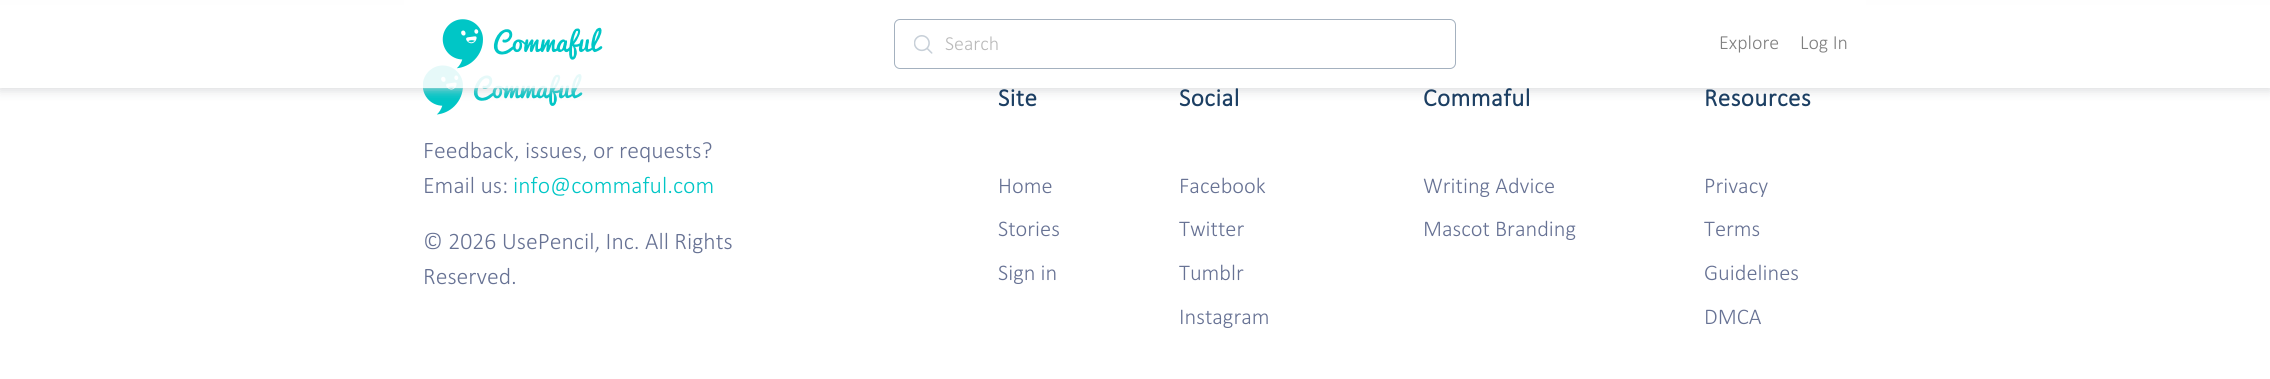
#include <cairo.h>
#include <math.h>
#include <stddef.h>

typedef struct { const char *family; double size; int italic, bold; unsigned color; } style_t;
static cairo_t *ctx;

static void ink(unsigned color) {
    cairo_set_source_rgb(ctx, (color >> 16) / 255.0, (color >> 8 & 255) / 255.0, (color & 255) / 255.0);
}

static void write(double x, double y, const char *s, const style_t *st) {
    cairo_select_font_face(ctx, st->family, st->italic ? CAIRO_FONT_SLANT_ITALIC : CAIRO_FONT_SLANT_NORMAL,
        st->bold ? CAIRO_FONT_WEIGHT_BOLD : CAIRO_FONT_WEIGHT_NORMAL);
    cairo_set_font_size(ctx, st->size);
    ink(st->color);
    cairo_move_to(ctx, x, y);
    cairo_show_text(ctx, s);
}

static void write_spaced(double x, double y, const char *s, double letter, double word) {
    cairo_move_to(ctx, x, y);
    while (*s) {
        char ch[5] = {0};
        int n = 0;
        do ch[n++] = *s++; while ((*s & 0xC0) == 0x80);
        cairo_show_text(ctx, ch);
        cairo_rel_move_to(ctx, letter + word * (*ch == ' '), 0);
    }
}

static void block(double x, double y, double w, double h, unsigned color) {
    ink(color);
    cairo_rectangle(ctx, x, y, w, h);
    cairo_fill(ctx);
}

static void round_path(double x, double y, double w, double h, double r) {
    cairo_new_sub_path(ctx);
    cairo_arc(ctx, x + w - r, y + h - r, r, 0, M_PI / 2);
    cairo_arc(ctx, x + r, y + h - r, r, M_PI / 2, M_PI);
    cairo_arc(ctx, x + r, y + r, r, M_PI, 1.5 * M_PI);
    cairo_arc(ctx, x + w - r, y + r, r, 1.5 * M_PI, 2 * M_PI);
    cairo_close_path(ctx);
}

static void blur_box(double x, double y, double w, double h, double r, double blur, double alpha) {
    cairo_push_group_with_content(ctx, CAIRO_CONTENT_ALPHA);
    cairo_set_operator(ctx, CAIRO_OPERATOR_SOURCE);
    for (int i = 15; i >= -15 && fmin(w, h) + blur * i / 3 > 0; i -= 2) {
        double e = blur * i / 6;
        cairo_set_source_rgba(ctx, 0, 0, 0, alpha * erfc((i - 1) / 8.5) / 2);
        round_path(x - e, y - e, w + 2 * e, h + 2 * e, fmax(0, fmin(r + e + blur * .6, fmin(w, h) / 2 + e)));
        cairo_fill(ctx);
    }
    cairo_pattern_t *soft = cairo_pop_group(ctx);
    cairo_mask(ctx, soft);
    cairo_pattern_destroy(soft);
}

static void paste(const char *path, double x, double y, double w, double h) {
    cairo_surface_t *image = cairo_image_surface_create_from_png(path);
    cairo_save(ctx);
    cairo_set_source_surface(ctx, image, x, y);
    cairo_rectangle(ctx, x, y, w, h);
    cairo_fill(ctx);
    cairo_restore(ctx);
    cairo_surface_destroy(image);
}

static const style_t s1 = {"Calibri Light", 20, 0, 0, 0xbababa};
static const style_t s2 = {"Calibri Light", 20, 0, 0, 0x808080};
static const style_t s3 = {"Calibri Light", 23.75, 0, 0, 0x677294};
static const style_t s4 = {"Calibri Light", 23.75, 0, 0, 0x00c6c6};
static const style_t s5 = {"Calibri Light", 22.5, 0, 0, 0x677294};

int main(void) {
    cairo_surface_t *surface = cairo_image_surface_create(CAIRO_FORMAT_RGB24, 2270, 379);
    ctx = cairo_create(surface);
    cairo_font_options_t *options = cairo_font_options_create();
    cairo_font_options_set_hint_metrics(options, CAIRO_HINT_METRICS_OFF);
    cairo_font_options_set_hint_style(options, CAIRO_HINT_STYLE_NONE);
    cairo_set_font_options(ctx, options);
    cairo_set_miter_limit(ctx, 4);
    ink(0xffffff);
    cairo_paint(ctx);
    block(0, 0, 2270, 5, 0xf3f3f3);
    block(404, 0, 1462, 5, 0xffffff);
    paste("pic3.png", 423, 65, 160, 50);
    cairo_save(ctx);
    cairo_set_fill_rule(ctx, CAIRO_FILL_RULE_EVEN_ODD);
    cairo_new_path(ctx);
    cairo_move_to(ctx, 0, 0);
    cairo_line_to(ctx, 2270, 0);
    cairo_line_to(ctx, 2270, 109);
    cairo_line_to(ctx, 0, 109);
    cairo_close_path(ctx);
    cairo_move_to(ctx, 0, 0);
    cairo_line_to(ctx, 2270, 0);
    cairo_line_to(ctx, 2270, 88);
    cairo_line_to(ctx, 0, 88);
    cairo_close_path(ctx);
    cairo_clip(ctx);
    ink(0x214163);
    blur_box(0, 3, 2270, 87, 0, 6, 0.1);
    cairo_restore(ctx);
    cairo_set_source_rgba(ctx, 1, 1, 1, 0.9);
    cairo_rectangle(ctx, 0, 0, 2270, 88);
    cairo_fill(ctx);
    cairo_save(ctx);
    cairo_set_fill_rule(ctx, CAIRO_FILL_RULE_EVEN_ODD);
    cairo_new_path(ctx);
    cairo_move_to(ctx, 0, 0);
    cairo_line_to(ctx, 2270, 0);
    cairo_line_to(ctx, 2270, 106);
    cairo_line_to(ctx, 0, 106);
    cairo_close_path(ctx);
    cairo_move_to(ctx, 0, 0);
    cairo_line_to(ctx, 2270, 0);
    cairo_line_to(ctx, 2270, 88);
    cairo_line_to(ctx, 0, 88);
    cairo_close_path(ctx);
    cairo_clip(ctx);
    ink(0xdcdcdc);
    blur_box(0, 0, 2270, 88, 0, 5.5, 1);
    cairo_restore(ctx);
    paste("pic1.png", 442, 19, 161, 50);
    paste("pic2.png", 914, 35, 19, 19);
    cairo_set_source_rgba(ctx, 1, 1, 1, 0.5);
    round_path(894.5, 19.5, 561, 49, 5.5);
    cairo_fill_preserve(ctx);
    ink(0xa4b1bf);
    cairo_set_line_width(ctx, 1);
    cairo_stroke(ctx);
    write(945, 50, "Search", &s1);
    write(1719, 49, "Explore", &s2);
    write(1800, 49, "Log In", &s2);
    write(423, 158, "Feedback, issues, or requests?", &s3);
    write(423, 193, "Email us:", &s3);
    write(513, 193, "info@commaful.com", &s4);
    write(423, 249, "© 2026 UsePencil, Inc. All Rights", &s3);
    write(423, 284, "Reserved.", &s3);
    cairo_select_font_face(ctx, "Calibri", CAIRO_FONT_SLANT_NORMAL, CAIRO_FONT_WEIGHT_BOLD);
    cairo_set_font_size(ctx, 25);
    ink(0x1c3f63);
    write_spaced(998, 106, "Site", 0.5, 0);
    write(998, 193, "Home", &s5);
    write(998, 236, "Stories", &s5);
    write(998, 280, "Sign in", &s5);
    cairo_select_font_face(ctx, "Calibri", CAIRO_FONT_SLANT_NORMAL, CAIRO_FONT_WEIGHT_BOLD);
    cairo_set_font_size(ctx, 25);
    ink(0x1c3f63);
    write_spaced(1179, 106, "Social", 0.5, 0);
    write(1179, 193, "Facebook", &s5);
    write(1179, 236, "Twitter", &s5);
    write(1179, 280, "Tumblr", &s5);
    write(1179, 324, "Instagram", &s5);
    cairo_select_font_face(ctx, "Calibri", CAIRO_FONT_SLANT_NORMAL, CAIRO_FONT_WEIGHT_BOLD);
    cairo_set_font_size(ctx, 25);
    ink(0x1c3f63);
    write_spaced(1423, 106, "Commaful", 0.5, 0);
    write(1423, 193, "Writing Advice", &s5);
    write(1423, 236, "Mascot Branding", &s5);
    cairo_select_font_face(ctx, "Calibri", CAIRO_FONT_SLANT_NORMAL, CAIRO_FONT_WEIGHT_BOLD);
    cairo_set_font_size(ctx, 25);
    ink(0x1c3f63);
    write_spaced(1704, 106, "Resources", 0.5, 0);
    write(1704, 193, "Privacy", &s5);
    write(1704, 236, "Terms", &s5);
    write(1704, 280, "Guidelines", &s5);
    write(1704, 324, "DMCA", &s5);
    cairo_surface_write_to_png(surface, "screenshot.png");
    cairo_font_options_destroy(options);
    cairo_destroy(ctx);
    cairo_surface_destroy(surface);
    return 0;
}
